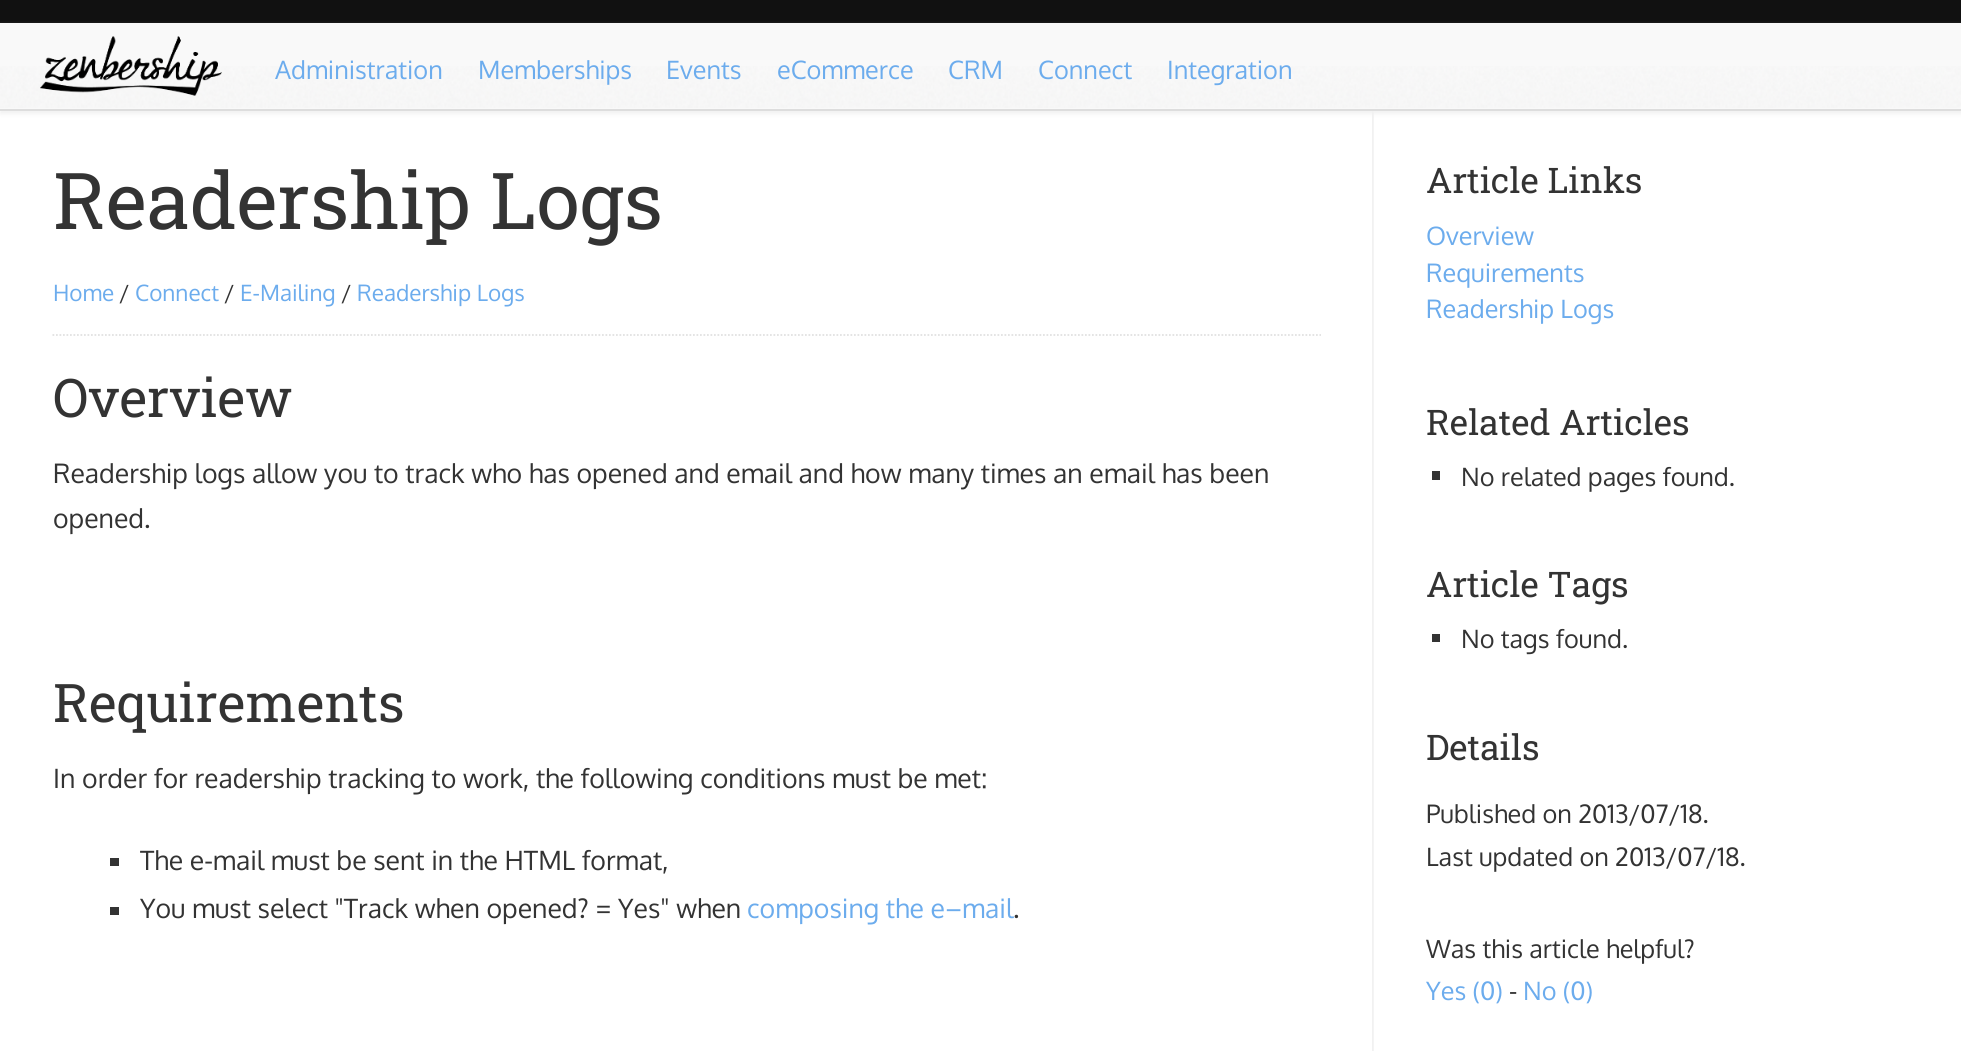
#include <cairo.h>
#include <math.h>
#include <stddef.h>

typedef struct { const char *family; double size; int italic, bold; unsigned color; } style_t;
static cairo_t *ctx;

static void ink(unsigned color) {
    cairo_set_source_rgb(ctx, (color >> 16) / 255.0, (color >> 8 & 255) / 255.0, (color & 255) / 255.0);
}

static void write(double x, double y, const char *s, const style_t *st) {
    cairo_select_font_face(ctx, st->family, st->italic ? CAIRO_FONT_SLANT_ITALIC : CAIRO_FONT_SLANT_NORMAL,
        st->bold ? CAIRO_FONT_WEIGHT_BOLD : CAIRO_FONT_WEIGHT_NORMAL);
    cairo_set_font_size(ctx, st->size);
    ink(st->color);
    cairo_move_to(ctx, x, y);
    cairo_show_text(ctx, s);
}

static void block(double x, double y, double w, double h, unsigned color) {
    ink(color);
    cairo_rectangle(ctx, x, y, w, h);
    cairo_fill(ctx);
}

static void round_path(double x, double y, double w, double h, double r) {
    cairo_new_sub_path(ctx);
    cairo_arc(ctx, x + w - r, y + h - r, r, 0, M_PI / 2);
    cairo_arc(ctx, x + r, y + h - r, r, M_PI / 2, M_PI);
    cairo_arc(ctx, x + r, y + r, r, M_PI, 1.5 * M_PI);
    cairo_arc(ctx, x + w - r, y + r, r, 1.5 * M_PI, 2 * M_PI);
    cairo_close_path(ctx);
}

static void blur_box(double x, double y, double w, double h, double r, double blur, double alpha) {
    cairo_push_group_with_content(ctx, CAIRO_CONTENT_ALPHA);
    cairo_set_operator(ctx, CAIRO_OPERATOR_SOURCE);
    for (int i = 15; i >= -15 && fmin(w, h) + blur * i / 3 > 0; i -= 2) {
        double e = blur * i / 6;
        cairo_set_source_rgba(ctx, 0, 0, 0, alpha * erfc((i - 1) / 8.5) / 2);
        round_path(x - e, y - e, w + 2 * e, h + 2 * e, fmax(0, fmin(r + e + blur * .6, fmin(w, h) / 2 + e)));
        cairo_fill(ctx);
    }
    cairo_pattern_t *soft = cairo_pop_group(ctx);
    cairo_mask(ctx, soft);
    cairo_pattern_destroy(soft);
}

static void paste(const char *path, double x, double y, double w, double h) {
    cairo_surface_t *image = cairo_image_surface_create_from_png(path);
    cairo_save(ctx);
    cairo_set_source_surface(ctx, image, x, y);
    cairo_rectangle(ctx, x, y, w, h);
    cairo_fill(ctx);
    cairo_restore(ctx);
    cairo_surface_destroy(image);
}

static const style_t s1 = {"Oxygen", 25.25, 0, 0, 0x6caced};
static const style_t s2 = {"Roboto Slab", 78.5, 0, 0, 0x333333};
static const style_t s3 = {"Oxygen", 22.5, 0, 0, 0x6caced};
static const style_t s4 = {"Oxygen", 22.5, 0, 0, 0x333333};
static const style_t s5 = {"Roboto Slab", 53.25, 0, 0, 0x333333};
static const style_t s6 = {"Oxygen", 26.6, 0, 0, 0x333333};
static const style_t s7 = {"Oxygen", 26.6, 0, 0, 0x6caced};
static const style_t s8 = {"Roboto Slab", 35.25, 0, 0, 0x333333};
static const style_t s9 = {"Oxygen", 25.25, 0, 0, 0x333333};

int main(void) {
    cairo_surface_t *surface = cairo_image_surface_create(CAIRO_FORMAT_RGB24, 1961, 1051);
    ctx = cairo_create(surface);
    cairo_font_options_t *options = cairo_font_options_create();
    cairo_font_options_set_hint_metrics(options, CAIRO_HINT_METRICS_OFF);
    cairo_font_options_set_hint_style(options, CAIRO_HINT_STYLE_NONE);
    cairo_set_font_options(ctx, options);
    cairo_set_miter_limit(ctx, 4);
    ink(0xffffff);
    cairo_paint(ctx);
    paste("pic1.png", 1372, 111, 2, 940);
    block(0, 0, 1961, 23, 0x111111);
    ink(0xf1f1f1);
    blur_box(0, 26, 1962, 88, 0, 2, 1);
    block(0, 23, 1961, 86, 0xf9f9f9);
    paste("pic2.png", 0, 66, 1961, 42);
    block(0, 109, 1961, 2, 0xdddddd);
    paste("pic3.png", 40, 36, 182, 60);
    write(275, 79, "Administration", &s1);
    write(478, 79, "Memberships", &s1);
    write(666, 79, "Events", &s1);
    write(777, 79, "eCommerce", &s1);
    write(948, 79, "CRM", &s1);
    write(1038, 79, "Connect", &s1);
    write(1167, 79, "Integration", &s1);
    write(53, 229, "Readership Logs", &s2);
    cairo_new_path(ctx);
    cairo_move_to(ctx, 52.5, 335);
    cairo_line_to(ctx, 1321, 335);
    ink(0xe1e1e1);
    cairo_set_line_width(ctx, 1.8);
    cairo_set_dash(ctx, (double[]){1.75, 1.75}, 2, 0);
    cairo_stroke(ctx);
    write(53, 301, "Home", &s3);
    write(119, 301, "/", &s4);
    write(135, 301, "Connect", &s3);
    write(224, 301, "/", &s4);
    write(240, 301, "E-Mailing", &s3);
    write(341, 301, "/", &s4);
    write(357, 301, "Readership Logs", &s3);
    write(53, 417, "Overview", &s5);
    write(53, 483, "Readership logs allow you to track who has opened and email and how many times an email has been", &s6);
    write(53, 528, "opened.", &s6);
    write(53, 722, "Requirements", &s5);
    write(53, 788, "In order for readership tracking to work, the following conditions must be met:", &s6);
    block(110, 858, 9, 8, 0x333333);
    write(140, 870, "The e-mail must be sent in the HTML format,", &s6);
    block(110, 907, 9, 8, 0x333333);
    write(140, 918, "You must select \"Track when opened? = Yes\" when", &s6);
    write(747, 918, "composing the e–mail", &s7);
    write(1013, 918, ".", &s6);
    write(1426, 193, "Article Links", &s8);
    write(1426, 245, "Overview", &s1);
    write(1426, 282, "Requirements", &s1);
    write(1426, 318, "Readership Logs", &s1);
    write(1426, 435, "Related Articles", &s8);
    block(1432, 471, 8, 9, 0x333333);
    write(1461, 486, "No related pages found.", &s9);
    write(1426, 597, "Article Tags", &s8);
    block(1432, 634, 8, 8, 0x333333);
    write(1461, 648, "No tags found.", &s9);
    write(1426, 760, "Details", &s8);
    write(1426, 823, "Published on 2013/07/18.", &s9);
    write(1426, 866, "Last updated on 2013/07/18.", &s9);
    write(1426, 958, "Was this article helpful?", &s9);
    write(1426, 1000, "Yes (0)", &s1);
    write(1509, 1000, "-", &s9);
    write(1523, 1000, "No (0)", &s1);
    cairo_surface_write_to_png(surface, "screenshot.png");
    cairo_font_options_destroy(options);
    cairo_destroy(ctx);
    cairo_surface_destroy(surface);
    return 0;
}
